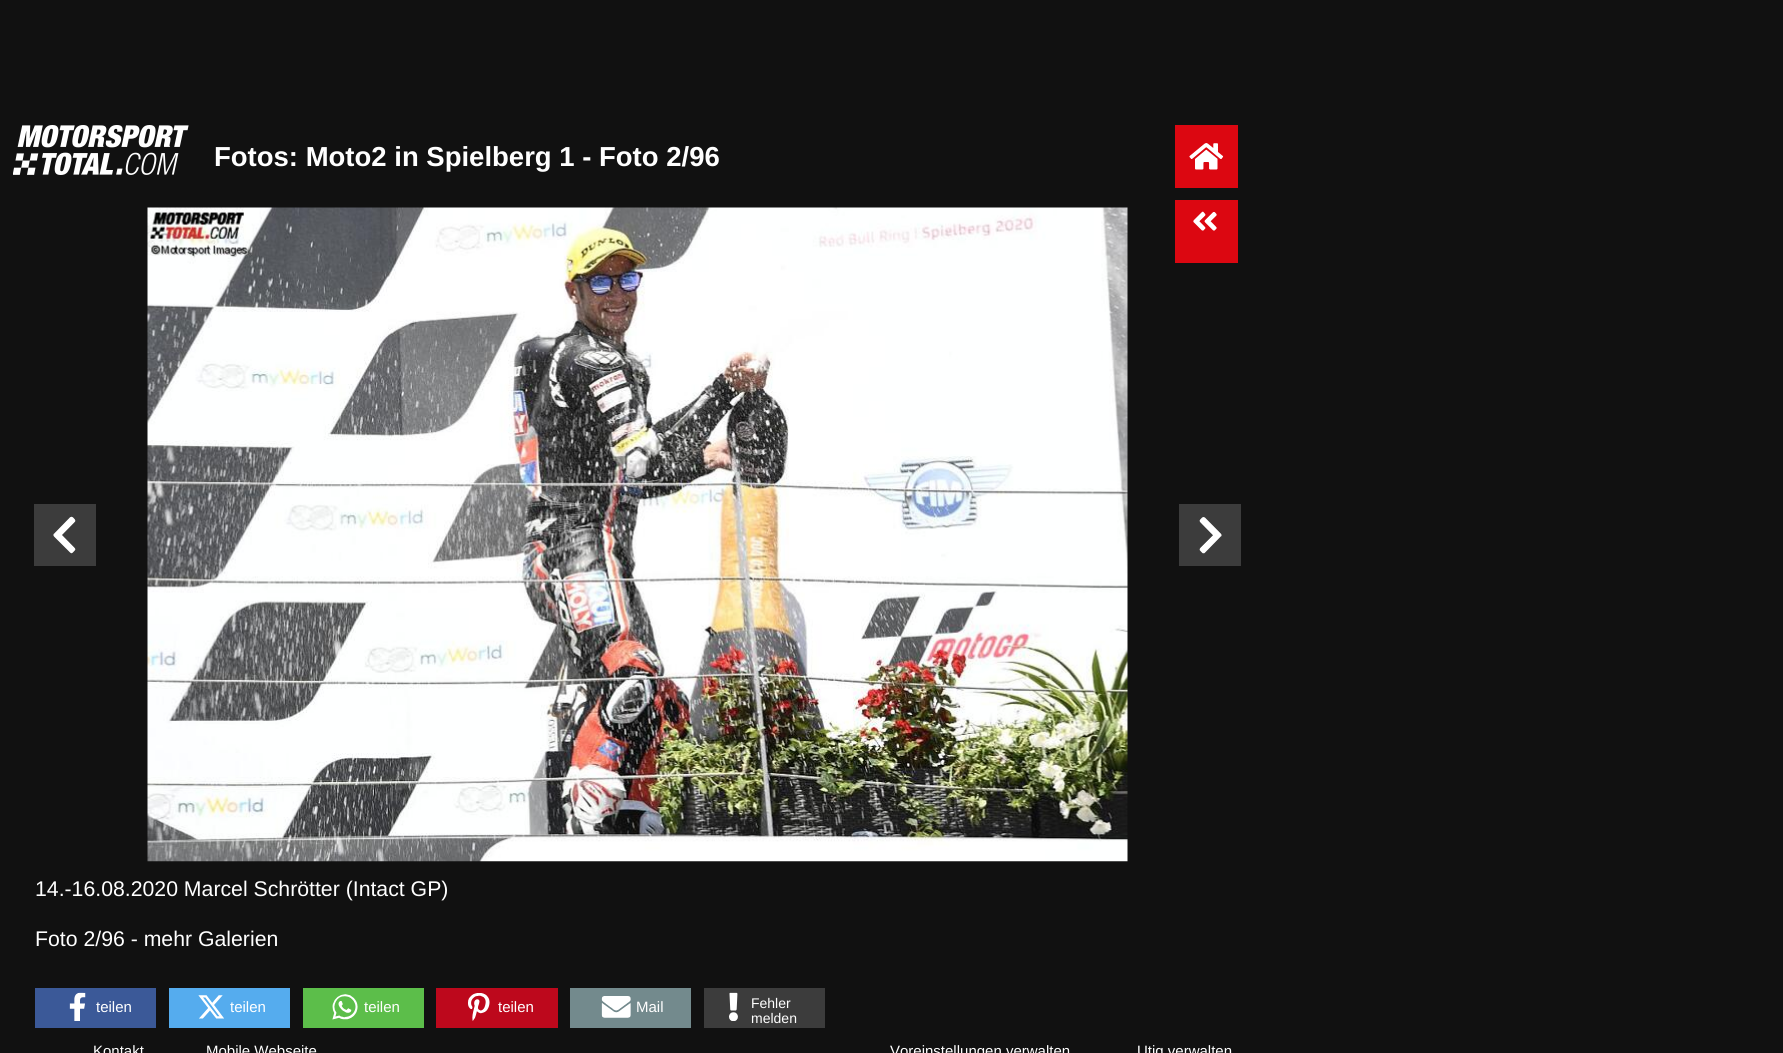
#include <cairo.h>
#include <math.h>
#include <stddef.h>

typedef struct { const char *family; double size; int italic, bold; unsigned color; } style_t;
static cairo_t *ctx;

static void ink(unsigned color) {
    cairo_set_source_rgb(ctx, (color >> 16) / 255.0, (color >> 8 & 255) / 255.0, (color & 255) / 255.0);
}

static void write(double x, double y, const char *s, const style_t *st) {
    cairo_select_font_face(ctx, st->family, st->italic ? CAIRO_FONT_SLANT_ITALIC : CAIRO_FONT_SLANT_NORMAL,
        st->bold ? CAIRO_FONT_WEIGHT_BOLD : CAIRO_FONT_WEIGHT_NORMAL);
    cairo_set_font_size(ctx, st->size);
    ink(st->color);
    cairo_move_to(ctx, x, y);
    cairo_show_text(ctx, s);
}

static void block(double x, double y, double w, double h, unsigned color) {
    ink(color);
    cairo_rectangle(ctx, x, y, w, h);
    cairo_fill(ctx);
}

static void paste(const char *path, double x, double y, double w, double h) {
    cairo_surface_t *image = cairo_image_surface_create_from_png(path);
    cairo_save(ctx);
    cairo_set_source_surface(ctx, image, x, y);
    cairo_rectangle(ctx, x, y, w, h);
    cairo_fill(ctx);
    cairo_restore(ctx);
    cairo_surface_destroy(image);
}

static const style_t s1 = {"Liberation Sans", 27.5, 0, 1, 0xffffff};
static const style_t s2 = {"Liberation Sans", 21.25, 0, 0, 0xffffff};
static const style_t s3 = {"Liberation Sans", 15, 0, 0, 0xffffff};
static const style_t s4 = {"Liberation Sans", 14, 0, 0, 0xffffff};

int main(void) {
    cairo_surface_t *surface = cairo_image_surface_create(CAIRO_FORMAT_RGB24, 1783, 1053);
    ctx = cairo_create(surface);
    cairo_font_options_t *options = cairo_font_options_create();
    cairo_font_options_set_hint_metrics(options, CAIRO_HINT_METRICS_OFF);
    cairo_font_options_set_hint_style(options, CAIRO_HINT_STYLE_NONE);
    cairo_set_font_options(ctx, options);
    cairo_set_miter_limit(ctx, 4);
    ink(0x111111);
    cairo_paint(ctx);
    paste("pic1.png", 13, 125, 176, 50);
    write(214, 166, "Fotos: Moto2 in Spielberg 1 - Foto 2/96", &s1);
    block(1175, 125, 63, 63, 0xdc0711);
    paste("pic2.png", 1189, 143, 35, 27);
    block(1175, 200, 63, 63, 0xdc0711);
    paste("pic3.png", 1193, 211, 24, 20);
    block(34, 504, 62, 62, 0x3c3c3c);
    paste("pic4.png", 53, 516, 23, 38);
    paste("pic5.png", 147, 207, 981, 655);
    block(1179, 504, 62, 62, 0x3c3c3c);
    paste("pic6.png", 1199, 517, 23, 37);
    write(35, 896, "14.-16.08.2020 Marcel Schrötter (Intact GP)", &s2);
    write(35, 946, "Foto 2/96 - mehr Galerien", &s2);
    block(35, 988, 121, 40, 0x3b5998);
    paste("pic7.png", 69, 992, 17, 29);
    write(96, 1012, "teilen", &s3);
    block(169, 988, 121, 40, 0x55acee);
    paste("pic8.png", 198, 995, 26, 24);
    write(230, 1012, "teilen", &s3);
    block(303, 988, 121, 40, 0x5cbe4a);
    paste("pic9.png", 332, 994, 26, 26);
    write(364, 1012, "teilen", &s3);
    block(436, 988, 122, 40, 0xbd081c);
    paste("pic10.png", 468, 993, 22, 28);
    write(498, 1012, "teilen", &s3);
    block(570, 988, 121, 40, 0x738a8d);
    paste("pic11.png", 601, 996, 30, 22);
    write(636, 1012, "Mail", &s3);
    block(704, 988, 121, 40, 0x3c3c3c);
    paste("pic12.png", 729, 992, 9, 29);
    write(751, 1008, "Fehler", &s4);
    write(751, 1023, "melden", &s4);
    write(93, 1056, "Kontakt", &s3);
    write(206, 1056, "Mobile Webseite", &s3);
    write(890, 1056, "Voreinstellungen verwalten", &s3);
    write(1137, 1056, "Utiq verwalten", &s3);
    cairo_surface_write_to_png(surface, "screenshot.png");
    cairo_font_options_destroy(options);
    cairo_destroy(ctx);
    cairo_surface_destroy(surface);
    return 0;
}
